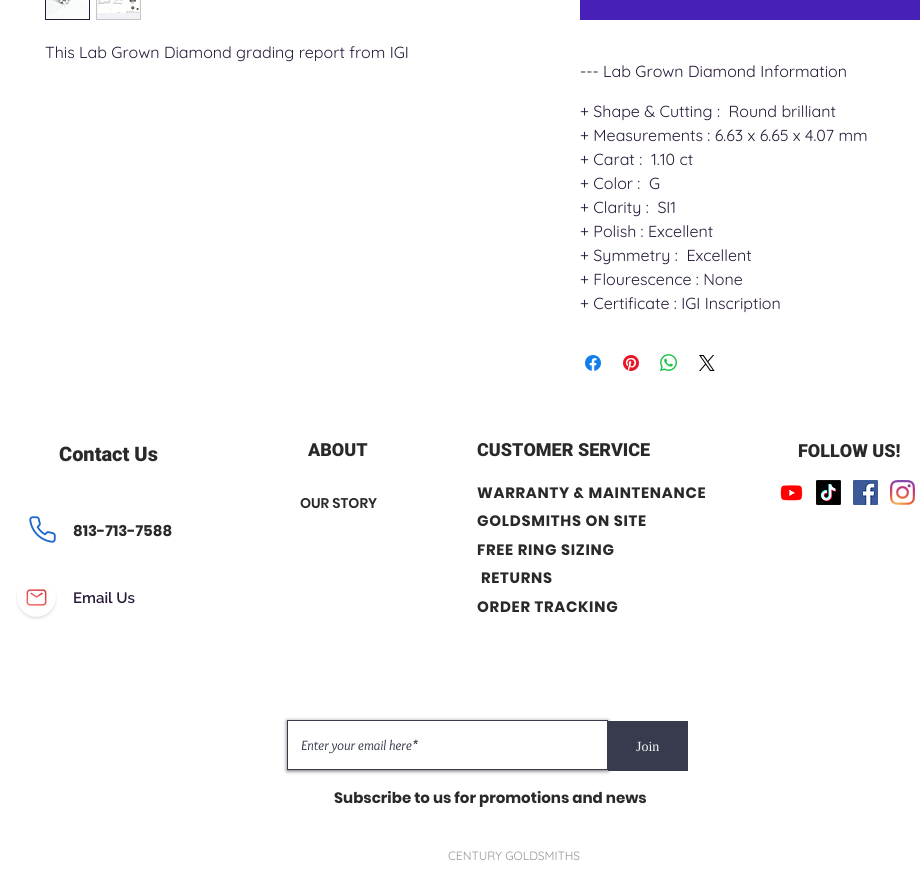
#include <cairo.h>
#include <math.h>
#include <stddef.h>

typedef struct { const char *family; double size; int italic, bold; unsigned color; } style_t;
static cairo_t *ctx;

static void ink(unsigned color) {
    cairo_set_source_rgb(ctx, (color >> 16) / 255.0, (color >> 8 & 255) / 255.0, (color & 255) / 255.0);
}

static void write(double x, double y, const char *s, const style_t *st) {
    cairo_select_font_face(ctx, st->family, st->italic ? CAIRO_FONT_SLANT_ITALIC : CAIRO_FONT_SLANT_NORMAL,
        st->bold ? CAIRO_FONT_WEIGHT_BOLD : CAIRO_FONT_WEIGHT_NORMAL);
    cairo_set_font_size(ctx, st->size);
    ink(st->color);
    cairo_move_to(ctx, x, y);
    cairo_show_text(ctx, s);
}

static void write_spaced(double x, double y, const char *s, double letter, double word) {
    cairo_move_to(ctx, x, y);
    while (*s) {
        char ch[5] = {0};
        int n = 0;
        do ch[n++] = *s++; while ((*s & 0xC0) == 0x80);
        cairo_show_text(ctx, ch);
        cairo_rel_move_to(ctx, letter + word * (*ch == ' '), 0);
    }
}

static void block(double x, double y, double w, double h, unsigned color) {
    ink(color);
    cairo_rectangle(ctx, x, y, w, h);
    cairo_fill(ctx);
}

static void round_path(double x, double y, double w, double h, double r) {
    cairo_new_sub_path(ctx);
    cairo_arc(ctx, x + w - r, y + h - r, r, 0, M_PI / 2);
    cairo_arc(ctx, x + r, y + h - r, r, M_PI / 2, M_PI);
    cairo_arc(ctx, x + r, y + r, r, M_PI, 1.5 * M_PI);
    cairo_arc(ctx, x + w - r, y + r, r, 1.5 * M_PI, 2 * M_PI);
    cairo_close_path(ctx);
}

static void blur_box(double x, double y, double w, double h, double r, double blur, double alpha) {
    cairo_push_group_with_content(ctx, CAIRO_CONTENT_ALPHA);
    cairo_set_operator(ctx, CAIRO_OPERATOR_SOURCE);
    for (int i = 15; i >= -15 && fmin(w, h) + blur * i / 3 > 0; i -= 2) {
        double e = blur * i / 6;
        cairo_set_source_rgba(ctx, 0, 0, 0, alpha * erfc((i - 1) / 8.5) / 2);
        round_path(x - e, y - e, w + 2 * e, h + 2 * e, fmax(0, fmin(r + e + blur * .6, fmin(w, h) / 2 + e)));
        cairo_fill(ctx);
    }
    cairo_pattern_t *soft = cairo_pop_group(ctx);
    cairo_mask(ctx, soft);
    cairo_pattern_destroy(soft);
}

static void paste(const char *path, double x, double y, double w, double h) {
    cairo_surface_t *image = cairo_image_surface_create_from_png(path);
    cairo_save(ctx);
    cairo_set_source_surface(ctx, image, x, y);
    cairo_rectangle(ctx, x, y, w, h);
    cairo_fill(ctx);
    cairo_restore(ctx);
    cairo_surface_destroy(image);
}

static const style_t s1 = {"Quicksand", 16, 0, 0, 0x281a39};
static const style_t s2 = {"Roboto Black", 20, 0, 0, 0x292929};
static const style_t s3 = {"Poppins", 15, 0, 1, 0x292929};
static const style_t s4 = {"Raleway SemiBold", 15, 0, 0, 0x281a39};
static const style_t s5 = {"Roboto Black", 18, 0, 0, 0x292929};
static const style_t s6 = {"Poppins SemiBold", 14, 0, 0, 0x292929};
static const style_t s7 = {"Overlock", 14, 1, 0, 0x373b4d};
static const style_t s8 = {"Liberation Serif", 14, 0, 0, 0xf6f6f6};
static const style_t s9 = {"Quicksand", 12, 0, 0, 0x949494};

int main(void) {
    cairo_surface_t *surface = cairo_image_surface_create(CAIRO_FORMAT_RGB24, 920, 886);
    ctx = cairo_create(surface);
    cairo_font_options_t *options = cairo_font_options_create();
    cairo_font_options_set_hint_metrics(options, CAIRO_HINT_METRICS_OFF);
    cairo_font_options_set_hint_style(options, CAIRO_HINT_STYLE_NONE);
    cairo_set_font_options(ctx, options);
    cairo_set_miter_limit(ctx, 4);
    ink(0xffffff);
    cairo_paint(ctx);
    cairo_rectangle(ctx, 45.5, -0.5, 44, 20);
    ink(0x281a39);
    cairo_set_line_width(ctx, 1);
    cairo_stroke(ctx);
    paste("pic1.png", 46, 0, 43, 19);
    cairo_rectangle(ctx, 96.5, -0.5, 44, 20);
    ink(0xc5c5c5);
    cairo_stroke(ctx);
    paste("pic2.png", 97, 0, 43, 19);
    write(45, 58, "This Lab Grown Diamond grading report from IGI", &s1);
    block(580, 0, 340, 20, 0x4720b7);
    write(580, 77, "--- Lab Grown Diamond Information", &s1);
    write(580, 117, "+ Shape & Cutting :  Round brilliant", &s1);
    write(580, 141, "+ Measurements : 6.63 x 6.65 x 4.07 mm", &s1);
    write(580, 165, "+ Carat :  1.10 ct", &s1);
    write(580, 189, "+ Color :  G", &s1);
    write(580, 213, "+ Clarity :  SI1", &s1);
    write(580, 237, "+ Polish : Excellent", &s1);
    write(580, 261, "+ Symmetry :  Excellent", &s1);
    write(580, 285, "+ Flourescence : None", &s1);
    write(580, 309, "+ Certificate : IGI Inscription", &s1);
    paste("pic3.png", 585, 355, 16, 16);
    paste("pic4.png", 623, 355, 16, 16);
    paste("pic5.png", 660, 354, 17, 17);
    paste("pic6.png", 699, 355, 16, 16);
    write(59, 461, "Contact Us", &s2);
    paste("pic7.png", 29, 516, 27, 27);
    write(73, 536, "813-713-7588", &s3);
    paste("pic8.png", 16, 589, 41, 31);
    write(73, 603, "Email Us", &s4);
    write(308, 456, "ABOUT", &s5);
    write(300, 508, "OUR STORY", &s6);
    write(477, 456, "CUSTOMER SERVICE", &s5);
    cairo_select_font_face(ctx, "Poppins", CAIRO_FONT_SLANT_NORMAL, CAIRO_FONT_WEIGHT_BOLD);
    cairo_set_font_size(ctx, 15);
    write_spaced(477, 498, "WARRANTY & MAINTENANCE", 0.75, 0);
    write_spaced(477, 526, "GOLDSMITHS ON SITE", 0.75, 0);
    write_spaced(477, 555, "FREE RING SIZING", 0.75, 0);
    write_spaced(481, 583, "RETURNS", 0.75, 0);
    write_spaced(477, 612, "ORDER TRACKING", 0.75, 0);
    write(798, 457, "FOLLOW US!", &s5);
    paste("pic9.png", 780, 485, 23, 16);
    paste("pic10.png", 816, 480, 25, 25);
    paste("pic11.png", 853, 480, 25, 25);
    paste("pic12.png", 890, 480, 25, 25);
    cairo_save(ctx);
    cairo_set_fill_rule(ctx, CAIRO_FILL_RULE_EVEN_ODD);
    cairo_new_path(ctx);
    cairo_move_to(ctx, 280, 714);
    cairo_line_to(ctx, 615, 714);
    cairo_line_to(ctx, 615, 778);
    cairo_line_to(ctx, 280, 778);
    cairo_close_path(ctx);
    cairo_move_to(ctx, 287, 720);
    cairo_line_to(ctx, 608, 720);
    cairo_line_to(ctx, 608, 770);
    cairo_line_to(ctx, 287, 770);
    cairo_close_path(ctx);
    cairo_clip(ctx);
    ink(0x000000);
    blur_box(287, 721, 321, 50, 0, 2, 0.6);
    cairo_restore(ctx);
    cairo_rectangle(ctx, 287.5, 720.5, 320, 49);
    ink(0x373b4d);
    cairo_stroke(ctx);
    write(301, 750, "Enter your email here*", &s7);
    block(608, 721, 80, 50, 0x373b4d);
    write(636, 751, "Join", &s8);
    write(334, 803, "Subscribe to us for promotions and news", &s3);
    write(448, 860, "CENTURY GOLDSMITHS", &s9);
    cairo_surface_write_to_png(surface, "screenshot.png");
    cairo_font_options_destroy(options);
    cairo_destroy(ctx);
    cairo_surface_destroy(surface);
    return 0;
}
